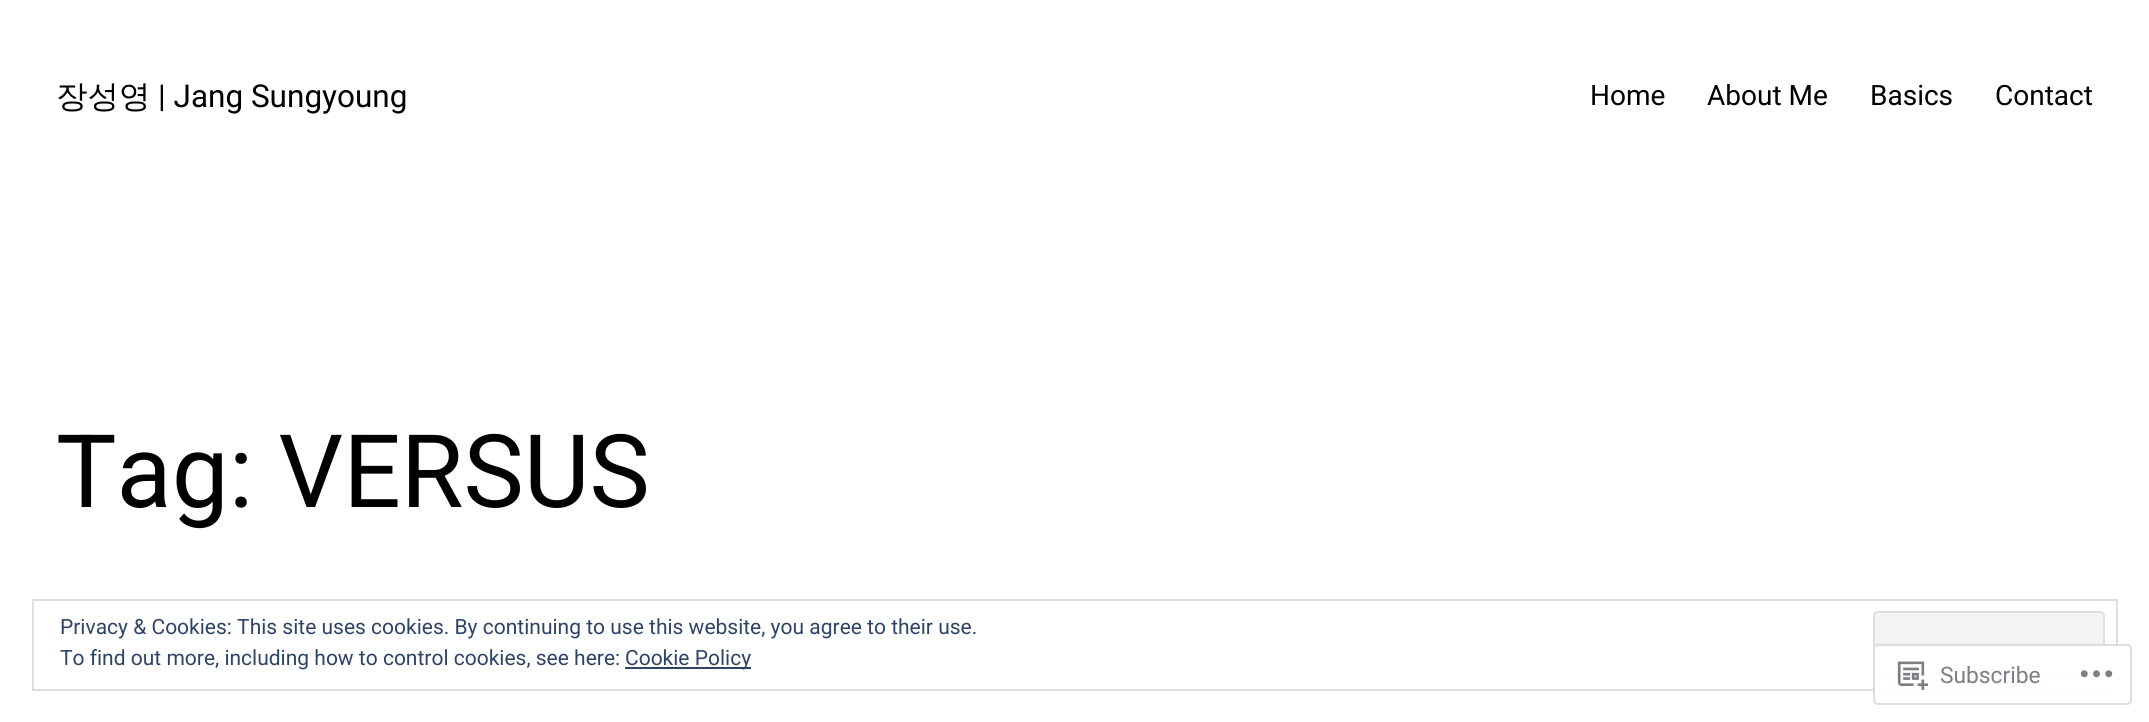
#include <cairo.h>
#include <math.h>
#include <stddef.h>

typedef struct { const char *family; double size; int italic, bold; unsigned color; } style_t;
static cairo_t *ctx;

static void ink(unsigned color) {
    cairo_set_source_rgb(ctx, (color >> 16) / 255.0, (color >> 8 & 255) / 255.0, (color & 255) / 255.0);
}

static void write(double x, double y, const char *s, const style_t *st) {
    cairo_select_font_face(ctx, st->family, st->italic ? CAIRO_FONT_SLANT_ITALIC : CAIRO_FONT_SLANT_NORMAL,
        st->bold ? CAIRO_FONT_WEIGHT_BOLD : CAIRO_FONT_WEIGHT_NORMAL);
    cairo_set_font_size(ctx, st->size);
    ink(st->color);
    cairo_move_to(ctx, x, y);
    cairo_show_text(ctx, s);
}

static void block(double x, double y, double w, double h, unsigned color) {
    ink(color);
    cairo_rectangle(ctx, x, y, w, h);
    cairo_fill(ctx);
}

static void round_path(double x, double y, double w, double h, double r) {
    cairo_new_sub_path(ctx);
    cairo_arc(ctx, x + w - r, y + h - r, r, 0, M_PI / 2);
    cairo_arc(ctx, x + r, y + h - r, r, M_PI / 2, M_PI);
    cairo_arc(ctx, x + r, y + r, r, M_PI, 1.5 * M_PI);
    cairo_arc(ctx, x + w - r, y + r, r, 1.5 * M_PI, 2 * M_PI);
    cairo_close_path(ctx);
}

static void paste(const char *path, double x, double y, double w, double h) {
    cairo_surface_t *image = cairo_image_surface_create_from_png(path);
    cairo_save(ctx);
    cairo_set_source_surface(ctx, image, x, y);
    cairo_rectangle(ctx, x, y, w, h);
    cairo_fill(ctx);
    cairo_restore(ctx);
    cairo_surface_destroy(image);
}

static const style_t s1 = {"WenQuanYi Zen Hei Medium", 31.5, 0, 0, 0x000000};
static const style_t s2 = {"Roboto", 31.5, 0, 0, 0x000000};
static const style_t s3 = {"Roboto", 28, 0, 0, 0x000000};
static const style_t s4 = {"Roboto", 101.5, 0, 0, 0x000000};
static const style_t s5 = {"Roboto", 21, 0, 0, 0x2e4467};
static const style_t s6 = {"Roboto", 22.75, 0, 0, 0x7b7f84};

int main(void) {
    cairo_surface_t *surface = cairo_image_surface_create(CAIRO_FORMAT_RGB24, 2149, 722);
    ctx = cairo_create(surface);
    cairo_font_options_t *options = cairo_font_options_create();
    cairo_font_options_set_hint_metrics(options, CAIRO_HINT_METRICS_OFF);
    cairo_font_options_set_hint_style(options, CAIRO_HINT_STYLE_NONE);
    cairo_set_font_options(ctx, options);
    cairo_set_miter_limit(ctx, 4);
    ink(0xffffff);
    cairo_paint(ctx);
    write(56, 107, "장성영", &s1);
    write(158, 107, "| Jang Sungyoung", &s2);
    write(1590, 105, "Home", &s3);
    write(1707, 105, "About Me", &s3);
    write(1870, 105, "Basics", &s3);
    write(1995, 105, "Contact", &s3);
    write(56, 507, "Tag: VERSUS", &s4);
    cairo_rectangle(ctx, 33, 600, 2084, 90);
    ink(0xdedede);
    cairo_stroke(ctx);
    write(60, 634, "Privacy & Cookies: This site uses cookies. By continuing to use this website, you agree to their use.", &s5);
    ink(0xf3f3f3);
    round_path(1874, 612, 230, 66, 4);
    cairo_fill_preserve(ctx);
    ink(0xdedede);
    cairo_stroke(ctx);
    write(60, 665, "To find out more, including how to control cookies, see here:", &s5);
    block(625, 667, 126, 2, 0x2e4467);
    write(625, 665, "Cookie Policy", &s5);
    cairo_set_source_rgba(ctx, 1, 1, 1, 0.98);
    round_path(1873, 644, 259, 61, 5);
    cairo_fill(ctx);
    round_path(1874, 645, 257, 59, 4);
    cairo_set_source_rgba(ctx, 0.863, 0.863, 0.871, 0.98);
    cairo_stroke(ctx);
    paste("pic1.png", 1897, 661, 32, 29);
    write(1940, 683, "Subscribe", &s6);
    paste("pic2.png", 2080, 670, 33, 8);
    cairo_surface_write_to_png(surface, "screenshot.png");
    cairo_font_options_destroy(options);
    cairo_destroy(ctx);
    cairo_surface_destroy(surface);
    return 0;
}
